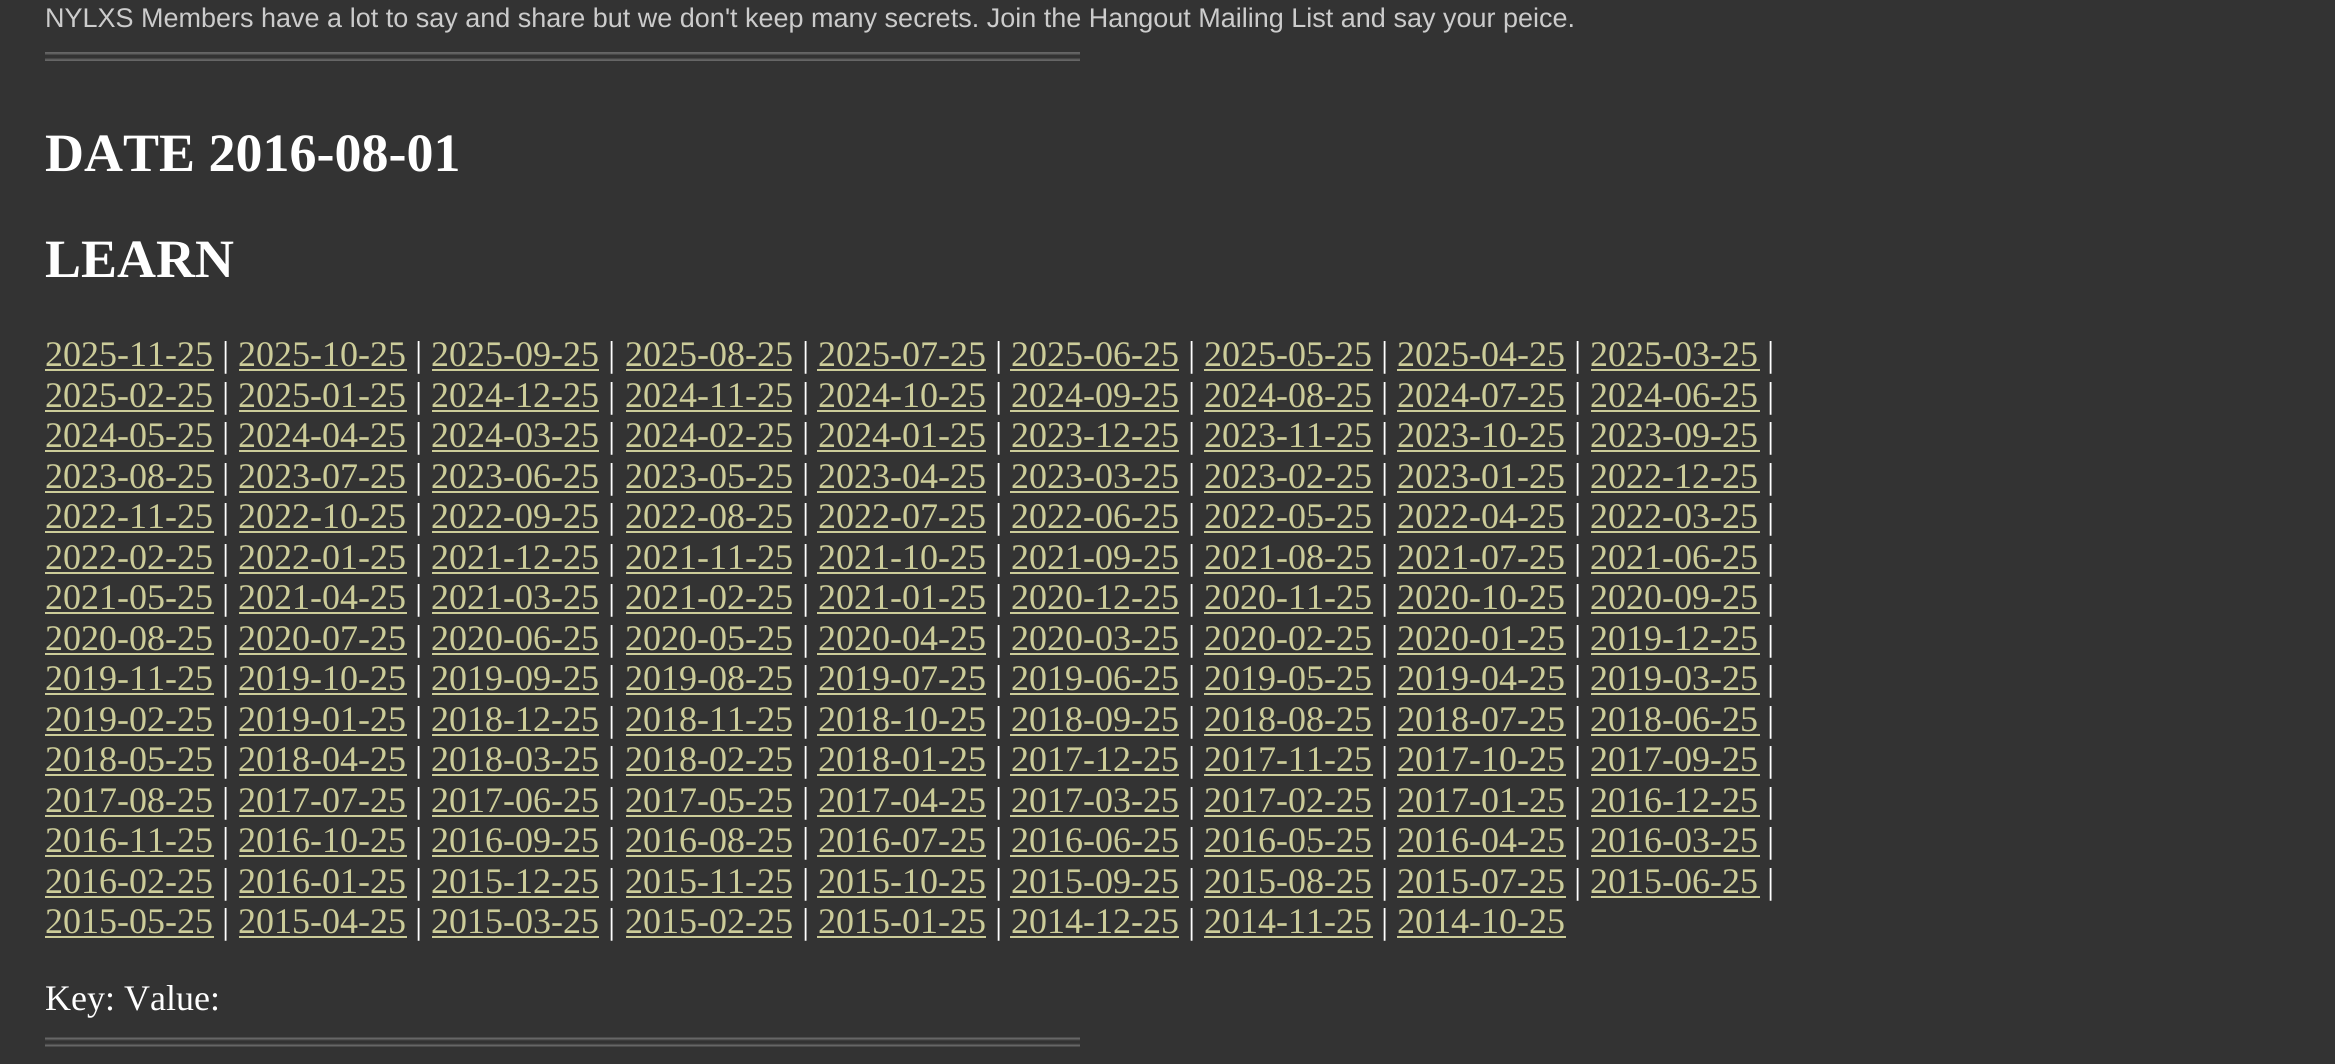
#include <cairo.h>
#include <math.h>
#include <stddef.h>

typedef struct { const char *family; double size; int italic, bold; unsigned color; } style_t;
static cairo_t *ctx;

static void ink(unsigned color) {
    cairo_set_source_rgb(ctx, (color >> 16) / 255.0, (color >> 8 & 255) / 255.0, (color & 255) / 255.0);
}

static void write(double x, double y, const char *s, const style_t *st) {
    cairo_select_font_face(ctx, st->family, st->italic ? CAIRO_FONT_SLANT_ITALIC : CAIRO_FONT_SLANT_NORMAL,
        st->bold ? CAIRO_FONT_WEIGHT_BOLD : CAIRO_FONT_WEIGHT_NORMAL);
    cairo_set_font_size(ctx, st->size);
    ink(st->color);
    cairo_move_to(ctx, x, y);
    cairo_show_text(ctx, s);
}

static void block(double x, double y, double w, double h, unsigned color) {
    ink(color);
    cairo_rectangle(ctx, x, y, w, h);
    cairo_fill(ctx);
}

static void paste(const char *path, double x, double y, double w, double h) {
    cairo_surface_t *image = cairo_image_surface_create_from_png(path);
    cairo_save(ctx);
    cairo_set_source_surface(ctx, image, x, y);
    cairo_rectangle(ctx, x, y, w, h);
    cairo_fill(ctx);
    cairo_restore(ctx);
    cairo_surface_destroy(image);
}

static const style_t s1 = {"Liberation Sans", 27, 0, 0, 0xcccccc};
static const style_t s2 = {"Liberation Serif", 54, 0, 1, 0xffffff};
static const style_t s3 = {"Liberation Serif", 36, 0, 0, 0xcccc99};
static const style_t s4 = {"Liberation Serif", 36, 0, 0, 0xffffff};

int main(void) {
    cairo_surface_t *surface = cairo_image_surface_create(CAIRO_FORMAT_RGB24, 2335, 1064);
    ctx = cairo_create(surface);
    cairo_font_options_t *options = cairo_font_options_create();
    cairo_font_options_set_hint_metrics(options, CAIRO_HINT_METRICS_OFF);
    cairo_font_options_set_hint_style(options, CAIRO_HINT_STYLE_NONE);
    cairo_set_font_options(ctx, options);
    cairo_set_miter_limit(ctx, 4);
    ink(0x333333);
    cairo_paint(ctx);
    write(45, 27, "NYLXS Members have a lot to say and share but we don't keep many secrets. Join the Hangout Mailing List and say your peice.", &s1);
    paste("pic1.png", 45, 52, 1035, 9);
    write(45, 171, "DATE 2016-08-01", &s2);
    write(45, 277, "LEARN", &s2);
    write(45, 366, "2025-11-25", &s3);
    block(45, 369, 169, 2, 0xcccc99);
    write(222, 366, "|", &s4);
    write(238, 366, "2025-10-25", &s3);
    block(239, 369, 168, 2, 0xcccc99);
    write(415, 366, "|", &s4);
    write(431, 366, "2025-09-25", &s3);
    block(432, 369, 167, 2, 0xcccc99);
    write(608, 366, "|", &s4);
    write(625, 366, "2025-08-25", &s3);
    block(626, 369, 166, 2, 0xcccc99);
    write(802, 366, "|", &s4);
    write(818, 366, "2025-07-25", &s3);
    block(817, 369, 169, 2, 0xcccc99);
    write(995, 366, "|", &s4);
    write(1011, 366, "2025-06-25", &s3);
    block(1010, 369, 169, 2, 0xcccc99);
    write(1188, 366, "|", &s4);
    write(1204, 366, "2025-05-25", &s3);
    block(1204, 369, 169, 2, 0xcccc99);
    write(1381, 366, "|", &s4);
    write(1397, 366, "2025-04-25", &s3);
    block(1397, 369, 169, 2, 0xcccc99);
    write(1574, 366, "|", &s4);
    write(1590, 366, "2025-03-25", &s3);
    block(1591, 369, 169, 2, 0xcccc99);
    write(1767, 366, "|", &s4);
    write(45, 407, "2025-02-25", &s3);
    block(45, 410, 169, 2, 0xcccc99);
    write(222, 407, "|", &s4);
    write(238, 407, "2025-01-25", &s3);
    block(239, 410, 168, 2, 0xcccc99);
    write(415, 407, "|", &s4);
    write(431, 407, "2024-12-25", &s3);
    block(432, 410, 167, 2, 0xcccc99);
    write(608, 407, "|", &s4);
    write(625, 407, "2024-11-25", &s3);
    block(626, 410, 166, 2, 0xcccc99);
    write(802, 407, "|", &s4);
    write(818, 407, "2024-10-25", &s3);
    block(817, 410, 169, 2, 0xcccc99);
    write(995, 407, "|", &s4);
    write(1011, 407, "2024-09-25", &s3);
    block(1010, 410, 169, 2, 0xcccc99);
    write(1188, 407, "|", &s4);
    write(1204, 407, "2024-08-25", &s3);
    block(1204, 410, 169, 2, 0xcccc99);
    write(1381, 407, "|", &s4);
    write(1397, 407, "2024-07-25", &s3);
    block(1397, 410, 169, 2, 0xcccc99);
    write(1574, 407, "|", &s4);
    write(1590, 407, "2024-06-25", &s3);
    block(1591, 410, 169, 2, 0xcccc99);
    write(1767, 407, "|", &s4);
    write(45, 447, "2024-05-25", &s3);
    block(45, 450, 169, 2, 0xcccc99);
    write(222, 447, "|", &s4);
    write(238, 447, "2024-04-25", &s3);
    block(239, 450, 168, 2, 0xcccc99);
    write(415, 447, "|", &s4);
    write(431, 447, "2024-03-25", &s3);
    block(432, 450, 167, 2, 0xcccc99);
    write(608, 447, "|", &s4);
    write(625, 447, "2024-02-25", &s3);
    block(626, 450, 166, 2, 0xcccc99);
    write(802, 447, "|", &s4);
    write(818, 447, "2024-01-25", &s3);
    block(817, 450, 169, 2, 0xcccc99);
    write(995, 447, "|", &s4);
    write(1011, 447, "2023-12-25", &s3);
    block(1010, 450, 169, 2, 0xcccc99);
    write(1188, 447, "|", &s4);
    write(1204, 447, "2023-11-25", &s3);
    block(1204, 450, 169, 2, 0xcccc99);
    write(1381, 447, "|", &s4);
    write(1397, 447, "2023-10-25", &s3);
    block(1397, 450, 169, 2, 0xcccc99);
    write(1574, 447, "|", &s4);
    write(1590, 447, "2023-09-25", &s3);
    block(1591, 450, 169, 2, 0xcccc99);
    write(1767, 447, "|", &s4);
    write(45, 488, "2023-08-25", &s3);
    block(45, 491, 169, 2, 0xcccc99);
    write(222, 488, "|", &s4);
    write(238, 488, "2023-07-25", &s3);
    block(239, 491, 168, 2, 0xcccc99);
    write(415, 488, "|", &s4);
    write(431, 488, "2023-06-25", &s3);
    block(432, 491, 167, 2, 0xcccc99);
    write(608, 488, "|", &s4);
    write(625, 488, "2023-05-25", &s3);
    block(626, 491, 166, 2, 0xcccc99);
    write(802, 488, "|", &s4);
    write(818, 488, "2023-04-25", &s3);
    block(817, 491, 169, 2, 0xcccc99);
    write(995, 488, "|", &s4);
    write(1011, 488, "2023-03-25", &s3);
    block(1010, 491, 169, 2, 0xcccc99);
    write(1188, 488, "|", &s4);
    write(1204, 488, "2023-02-25", &s3);
    block(1204, 491, 169, 2, 0xcccc99);
    write(1381, 488, "|", &s4);
    write(1397, 488, "2023-01-25", &s3);
    block(1397, 491, 169, 2, 0xcccc99);
    write(1574, 488, "|", &s4);
    write(1590, 488, "2022-12-25", &s3);
    block(1591, 491, 169, 2, 0xcccc99);
    write(1767, 488, "|", &s4);
    write(45, 528, "2022-11-25", &s3);
    block(45, 531, 169, 2, 0xcccc99);
    write(222, 528, "|", &s4);
    write(238, 528, "2022-10-25", &s3);
    block(239, 531, 168, 2, 0xcccc99);
    write(415, 528, "|", &s4);
    write(431, 528, "2022-09-25", &s3);
    block(432, 531, 167, 2, 0xcccc99);
    write(608, 528, "|", &s4);
    write(625, 528, "2022-08-25", &s3);
    block(626, 531, 166, 2, 0xcccc99);
    write(802, 528, "|", &s4);
    write(818, 528, "2022-07-25", &s3);
    block(817, 531, 169, 2, 0xcccc99);
    write(995, 528, "|", &s4);
    write(1011, 528, "2022-06-25", &s3);
    block(1010, 531, 169, 2, 0xcccc99);
    write(1188, 528, "|", &s4);
    write(1204, 528, "2022-05-25", &s3);
    block(1204, 531, 169, 2, 0xcccc99);
    write(1381, 528, "|", &s4);
    write(1397, 528, "2022-04-25", &s3);
    block(1397, 531, 169, 2, 0xcccc99);
    write(1574, 528, "|", &s4);
    write(1590, 528, "2022-03-25", &s3);
    block(1591, 531, 169, 2, 0xcccc99);
    write(1767, 528, "|", &s4);
    write(45, 569, "2022-02-25", &s3);
    block(45, 572, 169, 2, 0xcccc99);
    write(222, 569, "|", &s4);
    write(238, 569, "2022-01-25", &s3);
    block(239, 572, 168, 2, 0xcccc99);
    write(415, 569, "|", &s4);
    write(431, 569, "2021-12-25", &s3);
    block(432, 572, 167, 2, 0xcccc99);
    write(608, 569, "|", &s4);
    write(625, 569, "2021-11-25", &s3);
    block(626, 572, 166, 2, 0xcccc99);
    write(802, 569, "|", &s4);
    write(818, 569, "2021-10-25", &s3);
    block(817, 572, 169, 2, 0xcccc99);
    write(995, 569, "|", &s4);
    write(1011, 569, "2021-09-25", &s3);
    block(1010, 572, 169, 2, 0xcccc99);
    write(1188, 569, "|", &s4);
    write(1204, 569, "2021-08-25", &s3);
    block(1204, 572, 169, 2, 0xcccc99);
    write(1381, 569, "|", &s4);
    write(1397, 569, "2021-07-25", &s3);
    block(1397, 572, 169, 2, 0xcccc99);
    write(1574, 569, "|", &s4);
    write(1590, 569, "2021-06-25", &s3);
    block(1591, 572, 169, 2, 0xcccc99);
    write(1767, 569, "|", &s4);
    write(45, 609, "2021-05-25", &s3);
    block(45, 612, 169, 2, 0xcccc99);
    write(222, 609, "|", &s4);
    write(238, 609, "2021-04-25", &s3);
    block(239, 612, 168, 2, 0xcccc99);
    write(415, 609, "|", &s4);
    write(431, 609, "2021-03-25", &s3);
    block(432, 612, 167, 2, 0xcccc99);
    write(608, 609, "|", &s4);
    write(625, 609, "2021-02-25", &s3);
    block(626, 612, 166, 2, 0xcccc99);
    write(802, 609, "|", &s4);
    write(818, 609, "2021-01-25", &s3);
    block(817, 612, 169, 2, 0xcccc99);
    write(995, 609, "|", &s4);
    write(1011, 609, "2020-12-25", &s3);
    block(1010, 612, 169, 2, 0xcccc99);
    write(1188, 609, "|", &s4);
    write(1204, 609, "2020-11-25", &s3);
    block(1204, 612, 169, 2, 0xcccc99);
    write(1381, 609, "|", &s4);
    write(1397, 609, "2020-10-25", &s3);
    block(1397, 612, 169, 2, 0xcccc99);
    write(1574, 609, "|", &s4);
    write(1590, 609, "2020-09-25", &s3);
    block(1591, 612, 169, 2, 0xcccc99);
    write(1767, 609, "|", &s4);
    write(45, 650, "2020-08-25", &s3);
    block(45, 653, 169, 2, 0xcccc99);
    write(222, 650, "|", &s4);
    write(238, 650, "2020-07-25", &s3);
    block(239, 653, 168, 2, 0xcccc99);
    write(415, 650, "|", &s4);
    write(431, 650, "2020-06-25", &s3);
    block(432, 653, 167, 2, 0xcccc99);
    write(608, 650, "|", &s4);
    write(625, 650, "2020-05-25", &s3);
    block(626, 653, 166, 2, 0xcccc99);
    write(802, 650, "|", &s4);
    write(818, 650, "2020-04-25", &s3);
    block(817, 653, 169, 2, 0xcccc99);
    write(995, 650, "|", &s4);
    write(1011, 650, "2020-03-25", &s3);
    block(1010, 653, 169, 2, 0xcccc99);
    write(1188, 650, "|", &s4);
    write(1204, 650, "2020-02-25", &s3);
    block(1204, 653, 169, 2, 0xcccc99);
    write(1381, 650, "|", &s4);
    write(1397, 650, "2020-01-25", &s3);
    block(1397, 653, 169, 2, 0xcccc99);
    write(1574, 650, "|", &s4);
    write(1590, 650, "2019-12-25", &s3);
    block(1591, 653, 169, 2, 0xcccc99);
    write(1767, 650, "|", &s4);
    write(45, 690, "2019-11-25", &s3);
    block(45, 693, 169, 2, 0xcccc99);
    write(222, 690, "|", &s4);
    write(238, 690, "2019-10-25", &s3);
    block(239, 693, 168, 2, 0xcccc99);
    write(415, 690, "|", &s4);
    write(431, 690, "2019-09-25", &s3);
    block(432, 693, 167, 2, 0xcccc99);
    write(608, 690, "|", &s4);
    write(625, 690, "2019-08-25", &s3);
    block(626, 693, 166, 2, 0xcccc99);
    write(802, 690, "|", &s4);
    write(818, 690, "2019-07-25", &s3);
    block(817, 693, 169, 2, 0xcccc99);
    write(995, 690, "|", &s4);
    write(1011, 690, "2019-06-25", &s3);
    block(1010, 693, 169, 2, 0xcccc99);
    write(1188, 690, "|", &s4);
    write(1204, 690, "2019-05-25", &s3);
    block(1204, 693, 169, 2, 0xcccc99);
    write(1381, 690, "|", &s4);
    write(1397, 690, "2019-04-25", &s3);
    block(1397, 693, 169, 2, 0xcccc99);
    write(1574, 690, "|", &s4);
    write(1590, 690, "2019-03-25", &s3);
    block(1591, 693, 169, 2, 0xcccc99);
    write(1767, 690, "|", &s4);
    write(45, 731, "2019-02-25", &s3);
    block(45, 734, 169, 2, 0xcccc99);
    write(222, 731, "|", &s4);
    write(238, 731, "2019-01-25", &s3);
    block(239, 734, 168, 2, 0xcccc99);
    write(415, 731, "|", &s4);
    write(431, 731, "2018-12-25", &s3);
    block(432, 734, 167, 2, 0xcccc99);
    write(608, 731, "|", &s4);
    write(625, 731, "2018-11-25", &s3);
    block(626, 734, 166, 2, 0xcccc99);
    write(802, 731, "|", &s4);
    write(818, 731, "2018-10-25", &s3);
    block(817, 734, 169, 2, 0xcccc99);
    write(995, 731, "|", &s4);
    write(1011, 731, "2018-09-25", &s3);
    block(1010, 734, 169, 2, 0xcccc99);
    write(1188, 731, "|", &s4);
    write(1204, 731, "2018-08-25", &s3);
    block(1204, 734, 169, 2, 0xcccc99);
    write(1381, 731, "|", &s4);
    write(1397, 731, "2018-07-25", &s3);
    block(1397, 734, 169, 2, 0xcccc99);
    write(1574, 731, "|", &s4);
    write(1590, 731, "2018-06-25", &s3);
    block(1591, 734, 169, 2, 0xcccc99);
    write(1767, 731, "|", &s4);
    write(45, 771, "2018-05-25", &s3);
    block(45, 774, 169, 2, 0xcccc99);
    write(222, 771, "|", &s4);
    write(238, 771, "2018-04-25", &s3);
    block(239, 774, 168, 2, 0xcccc99);
    write(415, 771, "|", &s4);
    write(431, 771, "2018-03-25", &s3);
    block(432, 774, 167, 2, 0xcccc99);
    write(608, 771, "|", &s4);
    write(625, 771, "2018-02-25", &s3);
    block(626, 774, 166, 2, 0xcccc99);
    write(802, 771, "|", &s4);
    write(818, 771, "2018-01-25", &s3);
    block(817, 774, 169, 2, 0xcccc99);
    write(995, 771, "|", &s4);
    write(1011, 771, "2017-12-25", &s3);
    block(1010, 774, 169, 2, 0xcccc99);
    write(1188, 771, "|", &s4);
    write(1204, 771, "2017-11-25", &s3);
    block(1204, 774, 169, 2, 0xcccc99);
    write(1381, 771, "|", &s4);
    write(1397, 771, "2017-10-25", &s3);
    block(1397, 774, 169, 2, 0xcccc99);
    write(1574, 771, "|", &s4);
    write(1590, 771, "2017-09-25", &s3);
    block(1591, 774, 169, 2, 0xcccc99);
    write(1767, 771, "|", &s4);
    write(45, 812, "2017-08-25", &s3);
    block(45, 815, 169, 2, 0xcccc99);
    write(222, 812, "|", &s4);
    write(238, 812, "2017-07-25", &s3);
    block(239, 815, 168, 2, 0xcccc99);
    write(415, 812, "|", &s4);
    write(431, 812, "2017-06-25", &s3);
    block(432, 815, 167, 2, 0xcccc99);
    write(608, 812, "|", &s4);
    write(625, 812, "2017-05-25", &s3);
    block(626, 815, 166, 2, 0xcccc99);
    write(802, 812, "|", &s4);
    write(818, 812, "2017-04-25", &s3);
    block(817, 815, 169, 2, 0xcccc99);
    write(995, 812, "|", &s4);
    write(1011, 812, "2017-03-25", &s3);
    block(1010, 815, 169, 2, 0xcccc99);
    write(1188, 812, "|", &s4);
    write(1204, 812, "2017-02-25", &s3);
    block(1204, 815, 169, 2, 0xcccc99);
    write(1381, 812, "|", &s4);
    write(1397, 812, "2017-01-25", &s3);
    block(1397, 815, 169, 2, 0xcccc99);
    write(1574, 812, "|", &s4);
    write(1590, 812, "2016-12-25", &s3);
    block(1591, 815, 169, 2, 0xcccc99);
    write(1767, 812, "|", &s4);
    write(45, 852, "2016-11-25", &s3);
    block(45, 855, 169, 2, 0xcccc99);
    write(222, 852, "|", &s4);
    write(238, 852, "2016-10-25", &s3);
    block(239, 855, 168, 2, 0xcccc99);
    write(415, 852, "|", &s4);
    write(431, 852, "2016-09-25", &s3);
    block(432, 855, 167, 2, 0xcccc99);
    write(608, 852, "|", &s4);
    write(625, 852, "2016-08-25", &s3);
    block(626, 855, 166, 2, 0xcccc99);
    write(802, 852, "|", &s4);
    write(818, 852, "2016-07-25", &s3);
    block(817, 855, 169, 2, 0xcccc99);
    write(995, 852, "|", &s4);
    write(1011, 852, "2016-06-25", &s3);
    block(1010, 855, 169, 2, 0xcccc99);
    write(1188, 852, "|", &s4);
    write(1204, 852, "2016-05-25", &s3);
    block(1204, 855, 169, 2, 0xcccc99);
    write(1381, 852, "|", &s4);
    write(1397, 852, "2016-04-25", &s3);
    block(1397, 855, 169, 2, 0xcccc99);
    write(1574, 852, "|", &s4);
    write(1590, 852, "2016-03-25", &s3);
    block(1591, 855, 169, 2, 0xcccc99);
    write(1767, 852, "|", &s4);
    write(45, 893, "2016-02-25", &s3);
    block(45, 896, 169, 2, 0xcccc99);
    write(222, 893, "|", &s4);
    write(238, 893, "2016-01-25", &s3);
    block(239, 896, 168, 2, 0xcccc99);
    write(415, 893, "|", &s4);
    write(431, 893, "2015-12-25", &s3);
    block(432, 896, 167, 2, 0xcccc99);
    write(608, 893, "|", &s4);
    write(625, 893, "2015-11-25", &s3);
    block(626, 896, 166, 2, 0xcccc99);
    write(802, 893, "|", &s4);
    write(818, 893, "2015-10-25", &s3);
    block(817, 896, 169, 2, 0xcccc99);
    write(995, 893, "|", &s4);
    write(1011, 893, "2015-09-25", &s3);
    block(1010, 896, 169, 2, 0xcccc99);
    write(1188, 893, "|", &s4);
    write(1204, 893, "2015-08-25", &s3);
    block(1204, 896, 169, 2, 0xcccc99);
    write(1381, 893, "|", &s4);
    write(1397, 893, "2015-07-25", &s3);
    block(1397, 896, 169, 2, 0xcccc99);
    write(1574, 893, "|", &s4);
    write(1590, 893, "2015-06-25", &s3);
    block(1591, 896, 169, 2, 0xcccc99);
    write(1767, 893, "|", &s4);
    write(45, 933, "2015-05-25", &s3);
    block(45, 936, 169, 2, 0xcccc99);
    write(222, 933, "|", &s4);
    write(238, 933, "2015-04-25", &s3);
    block(239, 936, 168, 2, 0xcccc99);
    write(415, 933, "|", &s4);
    write(431, 933, "2015-03-25", &s3);
    block(432, 936, 167, 2, 0xcccc99);
    write(608, 933, "|", &s4);
    write(625, 933, "2015-02-25", &s3);
    block(626, 936, 166, 2, 0xcccc99);
    write(802, 933, "|", &s4);
    write(818, 933, "2015-01-25", &s3);
    block(817, 936, 169, 2, 0xcccc99);
    write(995, 933, "|", &s4);
    write(1011, 933, "2014-12-25", &s3);
    block(1010, 936, 169, 2, 0xcccc99);
    write(1188, 933, "|", &s4);
    write(1204, 933, "2014-11-25", &s3);
    block(1204, 936, 169, 2, 0xcccc99);
    write(1381, 933, "|", &s4);
    write(1397, 933, "2014-10-25", &s3);
    block(1397, 936, 169, 2, 0xcccc99);
    write(45, 1010, "Key: Value:", &s4);
    paste("pic2.png", 45, 1037, 1035, 10);
    cairo_surface_write_to_png(surface, "screenshot.png");
    cairo_font_options_destroy(options);
    cairo_destroy(ctx);
    cairo_surface_destroy(surface);
    return 0;
}
